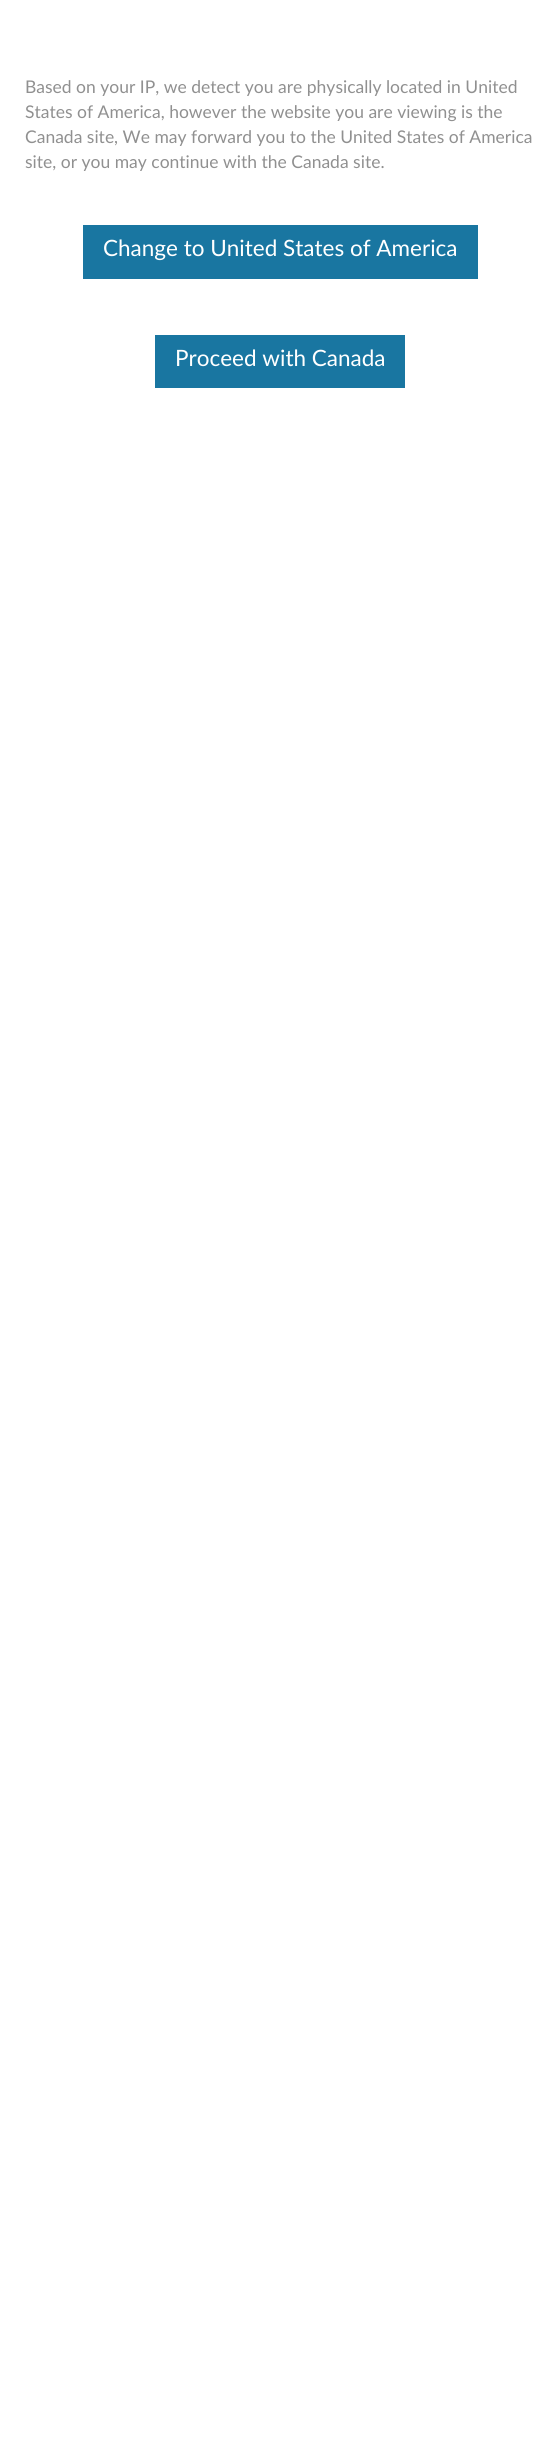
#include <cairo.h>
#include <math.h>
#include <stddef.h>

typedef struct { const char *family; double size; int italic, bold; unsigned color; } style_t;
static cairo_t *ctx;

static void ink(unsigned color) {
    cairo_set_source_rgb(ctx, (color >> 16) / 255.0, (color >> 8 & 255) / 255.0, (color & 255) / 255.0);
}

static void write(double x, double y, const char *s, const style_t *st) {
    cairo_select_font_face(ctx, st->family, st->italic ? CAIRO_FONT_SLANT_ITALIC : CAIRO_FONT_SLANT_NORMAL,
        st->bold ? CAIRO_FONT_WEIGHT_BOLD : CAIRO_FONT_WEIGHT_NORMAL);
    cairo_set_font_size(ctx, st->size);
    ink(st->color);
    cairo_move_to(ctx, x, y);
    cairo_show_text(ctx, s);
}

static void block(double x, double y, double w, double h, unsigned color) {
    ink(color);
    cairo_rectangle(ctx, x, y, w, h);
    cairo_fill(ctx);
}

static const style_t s1 = {"Lato", 17.5, 0, 0, 0x909090};
static const style_t s2 = {"Lato", 22.5, 0, 0, 0xffffff};

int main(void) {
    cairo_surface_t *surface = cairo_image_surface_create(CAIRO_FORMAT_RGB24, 560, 2459);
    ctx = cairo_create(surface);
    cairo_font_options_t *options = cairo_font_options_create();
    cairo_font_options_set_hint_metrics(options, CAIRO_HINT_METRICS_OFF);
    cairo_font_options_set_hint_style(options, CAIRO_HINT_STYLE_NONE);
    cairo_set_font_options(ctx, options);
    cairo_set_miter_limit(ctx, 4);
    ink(0xffffff);
    cairo_paint(ctx);
    write(25, 93, "Based on your IP, we detect you are physically located in United", &s1);
    write(25, 118, "States of America, however the website you are viewing is the", &s1);
    write(25, 143, "Canada site, We may forward you to the United States of America", &s1);
    write(25, 168, "site, or you may continue with the Canada site.", &s1);
    block(83, 225, 395, 54, 0x1976a1);
    write(103, 256, "Change to United States of America", &s2);
    block(155, 335, 250, 53, 0x1976a1);
    write(175, 366, "Proceed with Canada", &s2);
    cairo_surface_write_to_png(surface, "screenshot.png");
    cairo_font_options_destroy(options);
    cairo_destroy(ctx);
    cairo_surface_destroy(surface);
    return 0;
}
